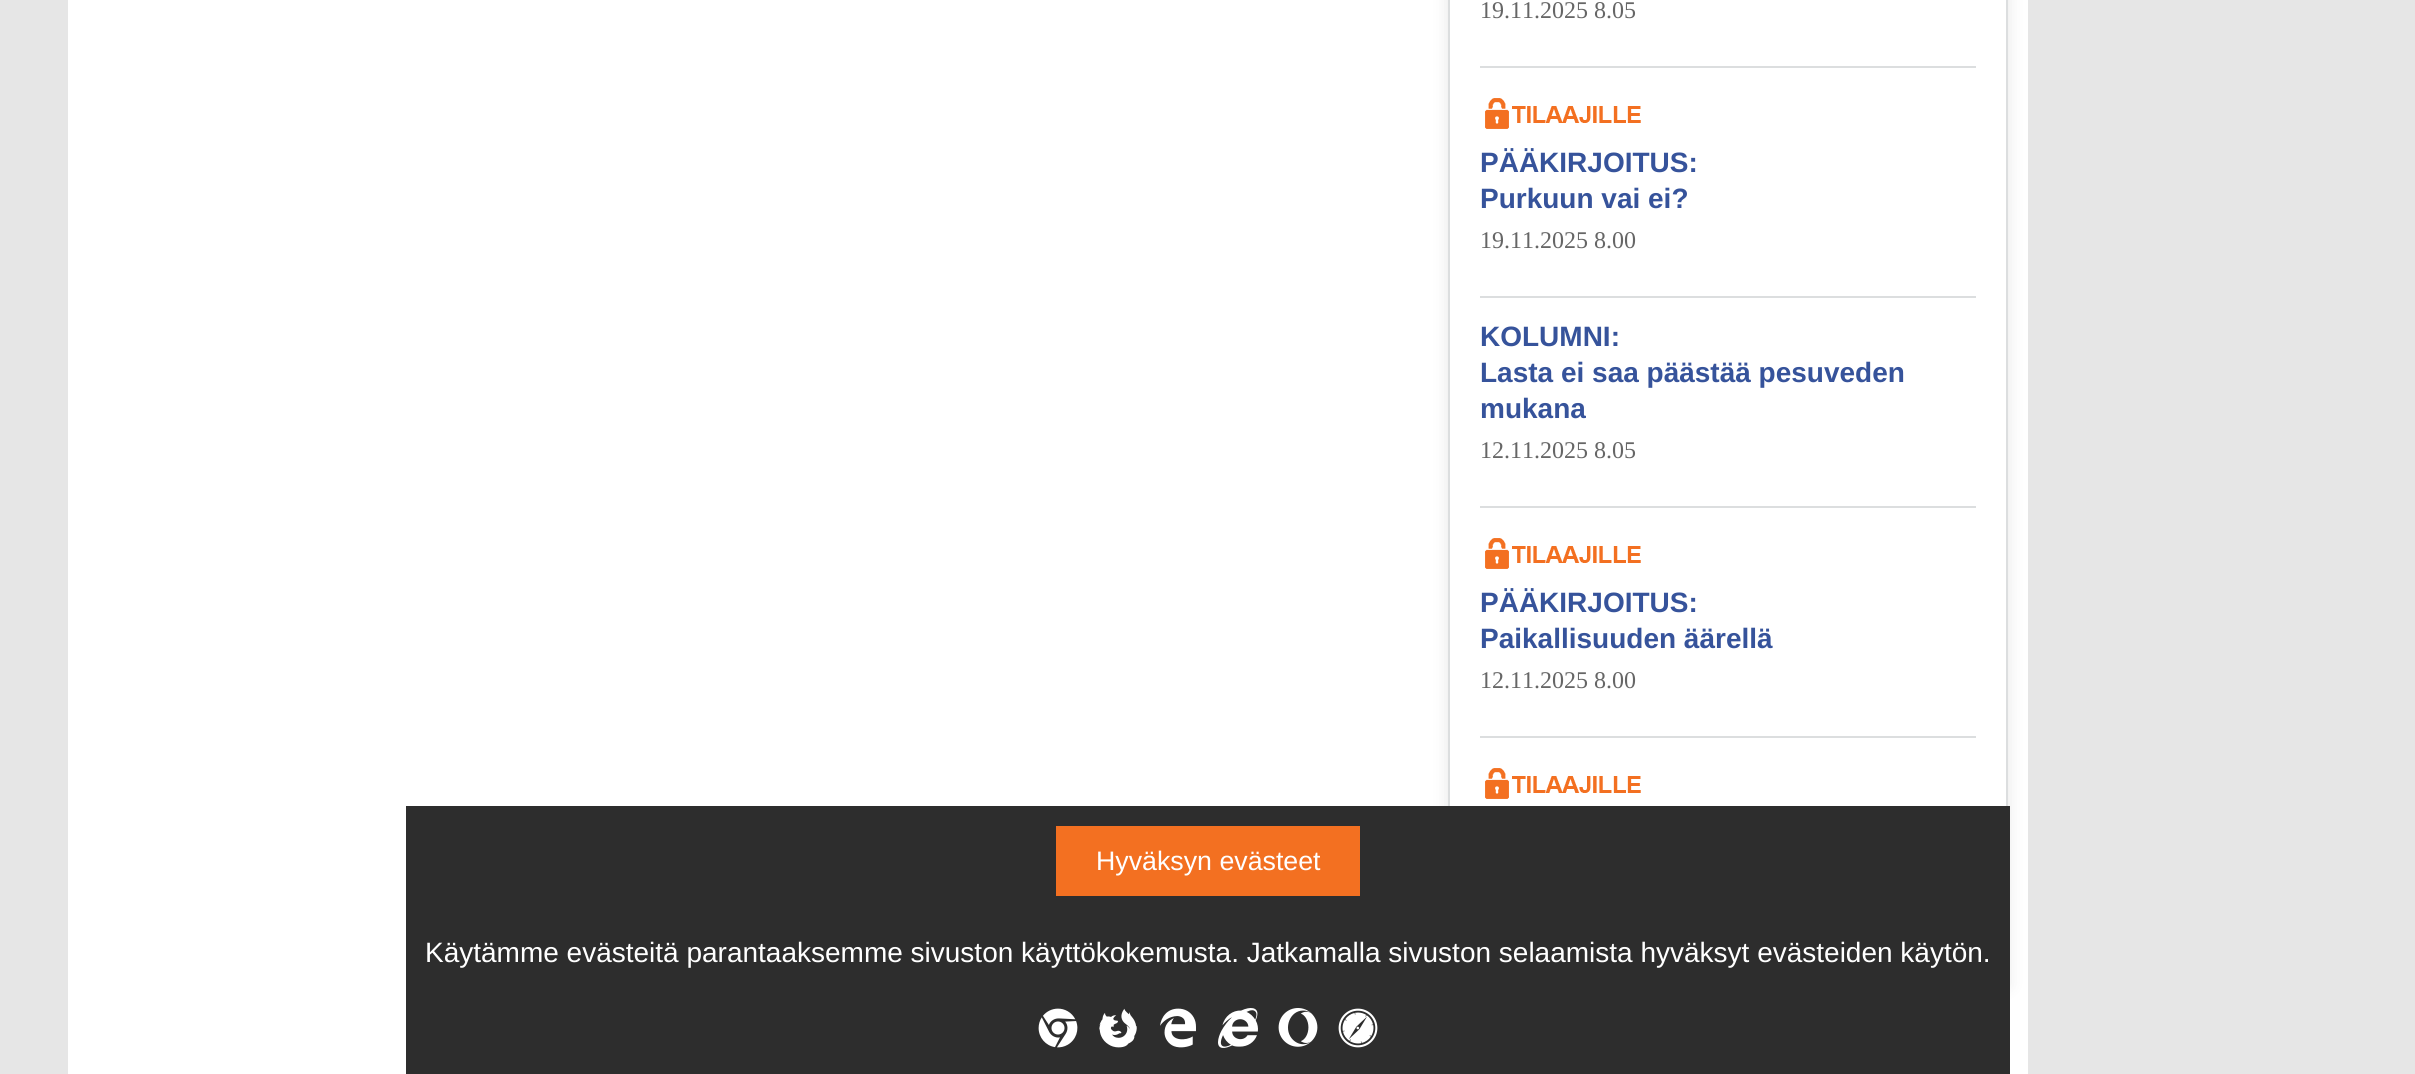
#include <cairo.h>
#include <math.h>
#include <stddef.h>

typedef struct { const char *family; double size; int italic, bold; unsigned color; } style_t;
static cairo_t *ctx;

static void ink(unsigned color) {
    cairo_set_source_rgb(ctx, (color >> 16) / 255.0, (color >> 8 & 255) / 255.0, (color & 255) / 255.0);
}

static void write(double x, double y, const char *s, const style_t *st) {
    cairo_select_font_face(ctx, st->family, st->italic ? CAIRO_FONT_SLANT_ITALIC : CAIRO_FONT_SLANT_NORMAL,
        st->bold ? CAIRO_FONT_WEIGHT_BOLD : CAIRO_FONT_WEIGHT_NORMAL);
    cairo_set_font_size(ctx, st->size);
    ink(st->color);
    cairo_move_to(ctx, x, y);
    cairo_show_text(ctx, s);
}

static void block(double x, double y, double w, double h, unsigned color) {
    ink(color);
    cairo_rectangle(ctx, x, y, w, h);
    cairo_fill(ctx);
}

static void round_path(double x, double y, double w, double h, double r) {
    cairo_new_sub_path(ctx);
    cairo_arc(ctx, x + w - r, y + h - r, r, 0, M_PI / 2);
    cairo_arc(ctx, x + r, y + h - r, r, M_PI / 2, M_PI);
    cairo_arc(ctx, x + r, y + r, r, M_PI, 1.5 * M_PI);
    cairo_arc(ctx, x + w - r, y + r, r, 1.5 * M_PI, 2 * M_PI);
    cairo_close_path(ctx);
}

static void blur_box(double x, double y, double w, double h, double r, double blur, double alpha) {
    cairo_push_group_with_content(ctx, CAIRO_CONTENT_ALPHA);
    cairo_set_operator(ctx, CAIRO_OPERATOR_SOURCE);
    for (int i = 15; i >= -15 && fmin(w, h) + blur * i / 3 > 0; i -= 2) {
        double e = blur * i / 6;
        cairo_set_source_rgba(ctx, 0, 0, 0, alpha * erfc((i - 1) / 8.5) / 2);
        round_path(x - e, y - e, w + 2 * e, h + 2 * e, fmax(0, fmin(r + e + blur * .6, fmin(w, h) / 2 + e)));
        cairo_fill(ctx);
    }
    cairo_pattern_t *soft = cairo_pop_group(ctx);
    cairo_mask(ctx, soft);
    cairo_pattern_destroy(soft);
}

static void paste(const char *path, double x, double y, double w, double h) {
    cairo_surface_t *image = cairo_image_surface_create_from_png(path);
    cairo_save(ctx);
    cairo_set_source_surface(ctx, image, x, y);
    cairo_rectangle(ctx, x, y, w, h);
    cairo_fill(ctx);
    cairo_restore(ctx);
    cairo_surface_destroy(image);
}

static const style_t s1 = {"Liberation Serif", 24, 0, 0, 0x666666};
static const style_t s2 = {"Liberation Sans", 28, 0, 1, 0x36539b};
static const style_t s3 = {"Liberation Sans", 26.75, 0, 0, 0xffffff};
static const style_t s4 = {"Liberation Sans", 28, 0, 0, 0xffffff};

int main(void) {
    cairo_surface_t *surface = cairo_image_surface_create(CAIRO_FORMAT_RGB24, 2415, 1074);
    ctx = cairo_create(surface);
    cairo_font_options_t *options = cairo_font_options_create();
    cairo_font_options_set_hint_metrics(options, CAIRO_HINT_METRICS_OFF);
    cairo_font_options_set_hint_style(options, CAIRO_HINT_STYLE_NONE);
    cairo_set_font_options(ctx, options);
    cairo_set_miter_limit(ctx, 4);
    ink(0xe6e6e6);
    cairo_paint(ctx);
    block(68, 0, 1960, 1074, 0xffffff);
    cairo_save(ctx);
    cairo_set_fill_rule(ctx, CAIRO_FILL_RULE_EVEN_ODD);
    cairo_new_path(ctx);
    cairo_move_to(ctx, 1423, 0);
    cairo_line_to(ctx, 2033, 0);
    cairo_line_to(ctx, 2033, 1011);
    cairo_line_to(ctx, 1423, 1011);
    cairo_close_path(ctx);
    cairo_move_to(ctx, 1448, -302);
    cairo_line_to(ctx, 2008, -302);
    cairo_line_to(ctx, 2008, 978);
    cairo_line_to(ctx, 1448, 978);
    cairo_close_path(ctx);
    cairo_clip(ctx);
    ink(0x000000);
    blur_box(1448, -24, 560, 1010, 0, 8, 0.1);
    cairo_restore(ctx);
    ink(0xdcdedf);
    cairo_new_path(ctx);
    cairo_move_to(ctx, 2008, -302);
    cairo_line_to(ctx, 2008, 978);
    cairo_line_to(ctx, 2006, 976);
    cairo_line_to(ctx, 2006, -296);
    cairo_close_path(ctx);
    cairo_fill(ctx);
    cairo_new_path(ctx);
    cairo_move_to(ctx, 1448, 978);
    cairo_line_to(ctx, 1448, -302);
    cairo_line_to(ctx, 1450, -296);
    cairo_line_to(ctx, 1450, 976);
    cairo_close_path(ctx);
    cairo_fill(ctx);
    write(1480, 18, "19.11.2025 8.05", &s1);
    block(1480, 66, 496, 2, 0xdcdedf);
    paste("pic1.png", 1485, 98, 156, 31);
    write(1480, 172, "PÄÄKIRJOITUS:", &s2);
    write(1480, 208, "Purkuun vai ei?", &s2);
    write(1480, 248, "19.11.2025 8.00", &s1);
    block(1480, 296, 496, 2, 0xdcdedf);
    write(1480, 346, "KOLUMNI:", &s2);
    write(1480, 382, "Lasta ei saa päästää pesuveden", &s2);
    write(1480, 418, "mukana", &s2);
    write(1480, 458, "12.11.2025 8.05", &s1);
    block(1480, 506, 496, 2, 0xdcdedf);
    paste("pic1.png", 1485, 538, 156, 31);
    write(1480, 612, "PÄÄKIRJOITUS:", &s2);
    write(1480, 648, "Paikallisuuden äärellä", &s2);
    write(1480, 688, "12.11.2025 8.00", &s1);
    block(1480, 736, 496, 2, 0xdcdedf);
    paste("pic1.png", 1485, 768, 156, 31);
    block(406, 806, 1604, 268, 0x2d2d2d);
    block(1056, 826, 304, 70, 0xf37021);
    write(1096, 870, "Hyväksyn evästeet", &s3);
    write(425, 962, "Käytämme evästeitä parantaaksemme sivuston käyttökokemusta. Jatkamalla sivuston selaamista hyväksyt evästeiden käytön.", &s4);
    paste("pic2.png", 1038, 1008, 40, 40);
    paste("pic3.png", 1099, 1008, 38, 40);
    paste("pic4.png", 1160, 1008, 36, 40);
    paste("pic5.png", 1218, 1008, 40, 40);
    paste("pic6.png", 1278, 1008, 40, 39);
    paste("pic7.png", 1338, 1008, 40, 40);
    cairo_surface_write_to_png(surface, "screenshot.png");
    cairo_font_options_destroy(options);
    cairo_destroy(ctx);
    cairo_surface_destroy(surface);
    return 0;
}
